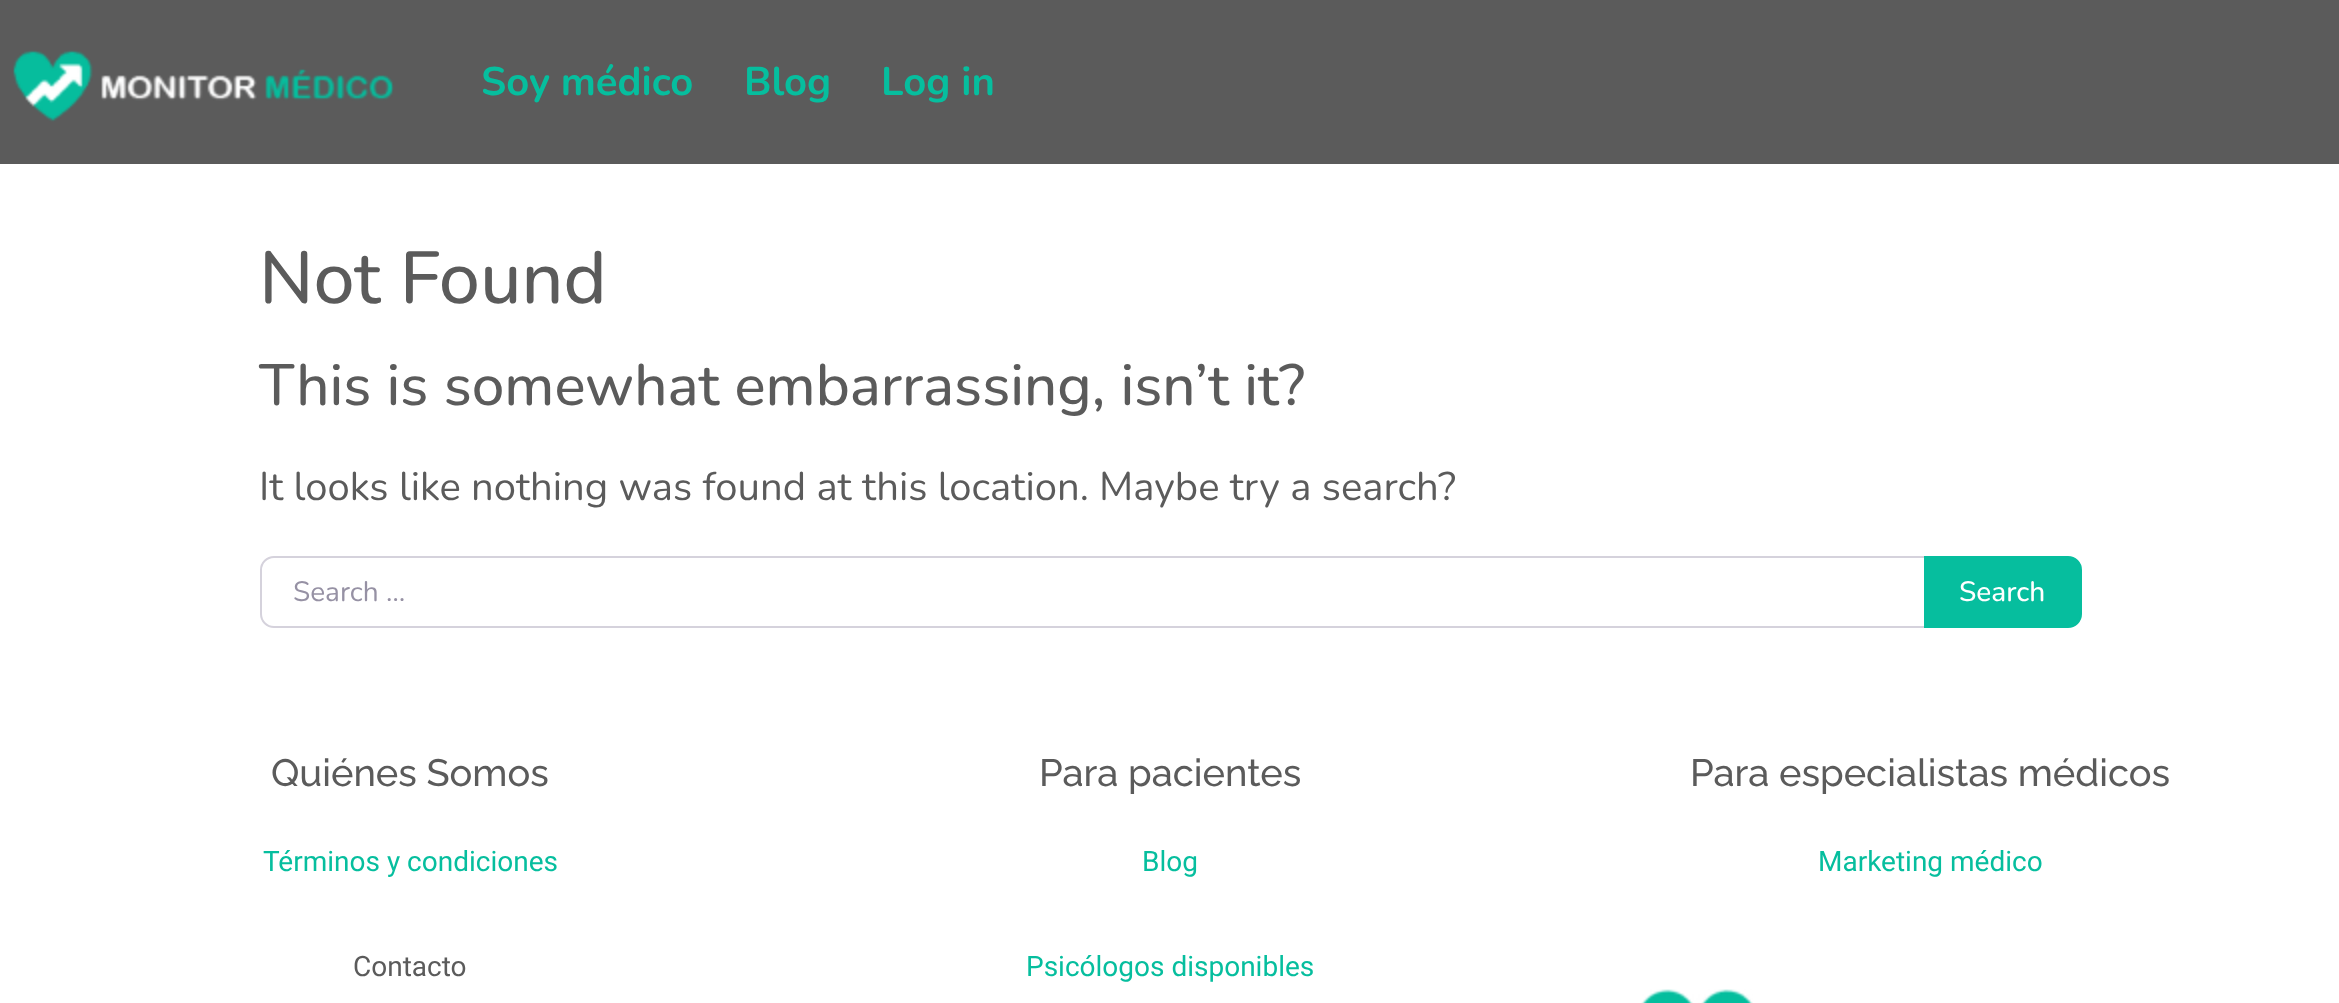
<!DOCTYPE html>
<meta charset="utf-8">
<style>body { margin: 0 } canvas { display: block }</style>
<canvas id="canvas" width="2339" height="1003"></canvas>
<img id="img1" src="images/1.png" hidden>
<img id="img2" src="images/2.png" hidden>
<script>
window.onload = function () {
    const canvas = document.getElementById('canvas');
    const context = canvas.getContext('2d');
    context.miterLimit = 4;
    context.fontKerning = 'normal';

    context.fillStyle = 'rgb(255, 255, 255)';
    context.fillRect(0, 0, 2339, 1003);
    context.fillStyle = 'rgb(91, 91, 91)';
    context.fillRect(0, 0, 2339, 164);
    context.drawImage(document.getElementById('img1'), 13, 50, 381, 72);
    context.beginPath();
    context.roundRect(261, 557, 1664, 70, [13, 0, 0, 13]);
    context.strokeStyle = 'rgb(213, 210, 220)';
    context.lineWidth = 2;
    context.stroke();
    context.fillStyle = 'rgb(6, 190, 158)';
    context.beginPath();
    context.roundRect(1925, 557, 156, 70, [0, 13, 13, 0]);
    context.fill();
    context.strokeStyle = 'rgb(6, 190, 158)';
    context.stroke();
    context.drawImage(document.getElementById('img2'), 1641, 989, 112, 14);
    context.font = 'bold 40px Nunito';
    context.fillText('Soy médico', 481, 95);
    context.fillText('Blog', 744, 95);
    context.fillText('Log in', 881, 95);
    context.font = '500 73.5px Nunito';
    context.fillStyle = 'rgb(91, 91, 91)';
    context.fillText('Not Found', 259, 303);
    context.font = '500 58.2px Nunito';
    context.fillText('This is somewhat embarrassing, isn’t it?', 259, 405);
    context.font = '40px Nunito';
    context.fillText('It looks like nothing was found at this location. Maybe try a search?', 259, 500);
    context.font = '28px Nunito';
    context.fillStyle = 'rgb(150, 145, 164)';
    context.fillText('Search …', 293, 601);
    context.font = '500 28px Nunito';
    context.fillStyle = 'rgb(255, 255, 255)';
    context.fillText('Search', 1959, 601);
    context.font = '500 38px Raleway';
    context.fillStyle = 'rgb(91, 91, 91)';
    context.fillText('Quiénes Somos', 271, 786);
    context.font = '28px Roboto';
    context.fillStyle = 'rgb(6, 190, 158)';
    context.fillText('Términos y condiciones', 263, 871);
    context.fillStyle = 'rgb(91, 91, 91)';
    context.fillText('Contacto', 353, 976);
    context.font = '500 38px Raleway';
    context.fillText('Para pacientes', 1039, 786);
    context.font = '28px Roboto';
    context.fillStyle = 'rgb(6, 190, 158)';
    context.fillText('Blog', 1142, 871);
    context.fillText('Psicólogos disponibles', 1026, 976);
    context.font = '500 38px Raleway';
    context.fillStyle = 'rgb(91, 91, 91)';
    context.fillText('Para especialistas médicos', 1690, 786);
    context.font = '28px Roboto';
    context.fillStyle = 'rgb(6, 190, 158)';
    context.fillText('Marketing médico', 1818, 871);
};
</script>
